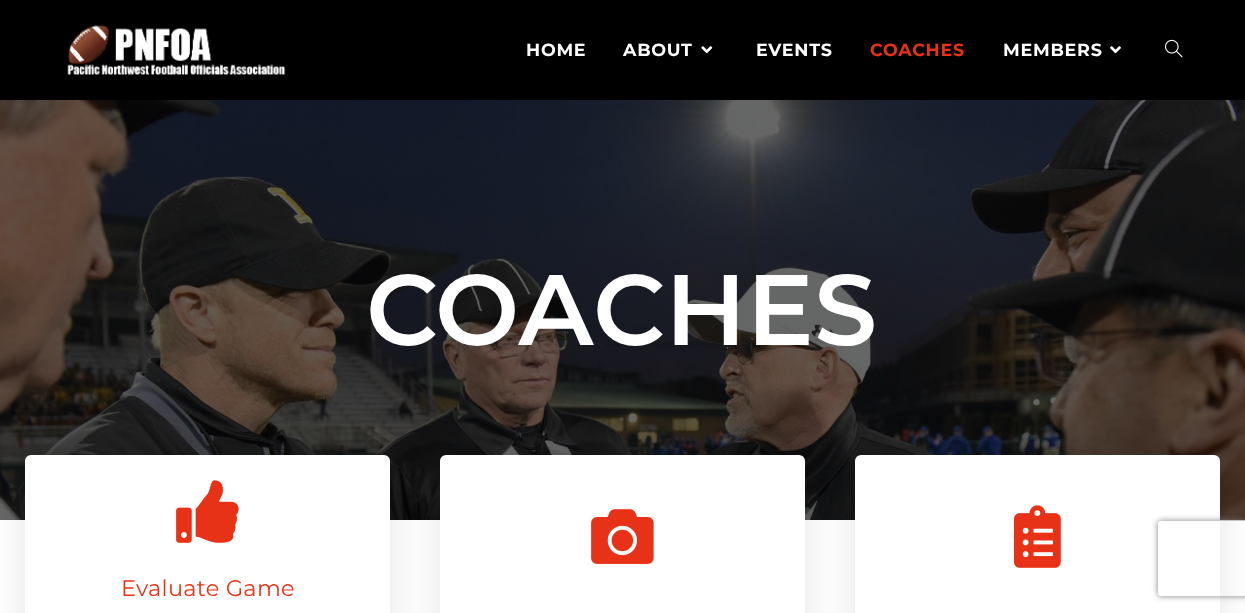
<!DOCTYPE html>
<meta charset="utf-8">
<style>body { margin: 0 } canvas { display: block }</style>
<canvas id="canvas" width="1245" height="613"></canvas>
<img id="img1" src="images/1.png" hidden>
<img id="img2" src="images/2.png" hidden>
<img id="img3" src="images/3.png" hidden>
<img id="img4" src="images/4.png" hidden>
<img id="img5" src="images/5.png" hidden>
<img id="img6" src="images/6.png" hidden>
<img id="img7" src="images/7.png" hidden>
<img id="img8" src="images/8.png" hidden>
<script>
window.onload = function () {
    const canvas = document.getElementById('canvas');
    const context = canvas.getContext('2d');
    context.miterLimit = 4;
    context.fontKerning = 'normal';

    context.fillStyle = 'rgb(255, 255, 255)';
    context.fillRect(0, 0, 1245, 613);
    context.fillStyle = 'rgb(0, 0, 0)';
    context.fillRect(0, 0, 1245, 100);
    context.drawImage(document.getElementById('img1'), 67, 25, 219, 50);
    context.drawImage(document.getElementById('img2'), 701, 46, 12, 8);
    context.drawImage(document.getElementById('img3'), 1110, 46, 11, 8);
    context.drawImage(document.getElementById('img4'), 1165, 39, 18, 19);
    context.drawImage(document.getElementById('img5'), 0, 100, 1245, 420);
    context.fillStyle = 'rgba(0, 0, 0, 0.1)';
    context.filter = 'blur(19px)';
    context.beginPath();
    context.roundRect(25, 455, 365, 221, 6);
    context.fill();
    context.filter = 'none';
    context.fillStyle = 'rgb(255, 255, 255)';
    context.beginPath();
    context.roundRect(25, 455, 365, 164, 6);
    context.fill();
    context.drawImage(document.getElementById('img6'), 176, 480, 63, 63);
    context.fillStyle = 'rgba(0, 0, 0, 0.1)';
    context.filter = 'blur(19px)';
    context.beginPath();
    context.roundRect(440, 455, 365, 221, 6);
    context.fill();
    context.filter = 'none';
    context.fillStyle = 'rgb(255, 255, 255)';
    context.beginPath();
    context.roundRect(440, 455, 365, 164, 6);
    context.fill();
    context.drawImage(document.getElementById('img7'), 591, 509, 63, 55);
    context.fillStyle = 'rgba(0, 0, 0, 0.1)';
    context.filter = 'blur(19px)';
    context.beginPath();
    context.roundRect(855, 455, 365, 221, 6);
    context.fill();
    context.filter = 'none';
    context.fillStyle = 'rgb(255, 255, 255)';
    context.beginPath();
    context.roundRect(855, 455, 365, 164, 6);
    context.fill();
    context.drawImage(document.getElementById('img8'), 1013, 505, 48, 63);
    context.save();
    context.beginPath();
    context.moveTo(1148, 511);
    context.lineTo(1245, 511);
    context.lineTo(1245, 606);
    context.lineTo(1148, 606);
    context.closePath();
    context.moveTo(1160.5, 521);
    context.lineTo(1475.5, 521);
    context.bezierCurveTo(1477, 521, 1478, 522, 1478, 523.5);
    context.lineTo(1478, 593.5);
    context.bezierCurveTo(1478, 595, 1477, 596, 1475.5, 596);
    context.lineTo(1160.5, 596);
    context.bezierCurveTo(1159, 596, 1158, 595, 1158, 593.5);
    context.lineTo(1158, 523.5);
    context.bezierCurveTo(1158, 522, 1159, 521, 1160.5, 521);
    context.closePath();
    context.clip('evenodd');
    context.fillStyle = 'rgb(128, 128, 128)';
    context.filter = 'blur(3px)';
    context.beginPath();
    context.roundRect(1158, 521, 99, 75, 2.5);
    context.fill();
    context.filter = 'none';
    context.restore();
    context.letterSpacing = '0.75px';
    context.font = 'bold 17.5px Montserrat';
    context.fillText('HOME', 526, 56);
    context.fillText('ABOUT', 623, 56);
    context.fillText('EVENTS', 756, 56);
    context.fillStyle = 'rgb(232, 50, 23)';
    context.fillText('COACHES', 870, 56);
    context.fillStyle = 'rgb(255, 255, 255)';
    context.fillText('MEMBERS', 1003, 56);
    context.letterSpacing = '0.5px';
    context.font = '600 100px Montserrat';
    context.fillText('COACHES', 366, 345);
    context.letterSpacing = '0.25px';
    context.font = '22.5px Montserrat';
    context.fillStyle = 'rgb(232, 50, 23)';
    context.fillText('Evaluate Game', 121, 596);
};
</script>
